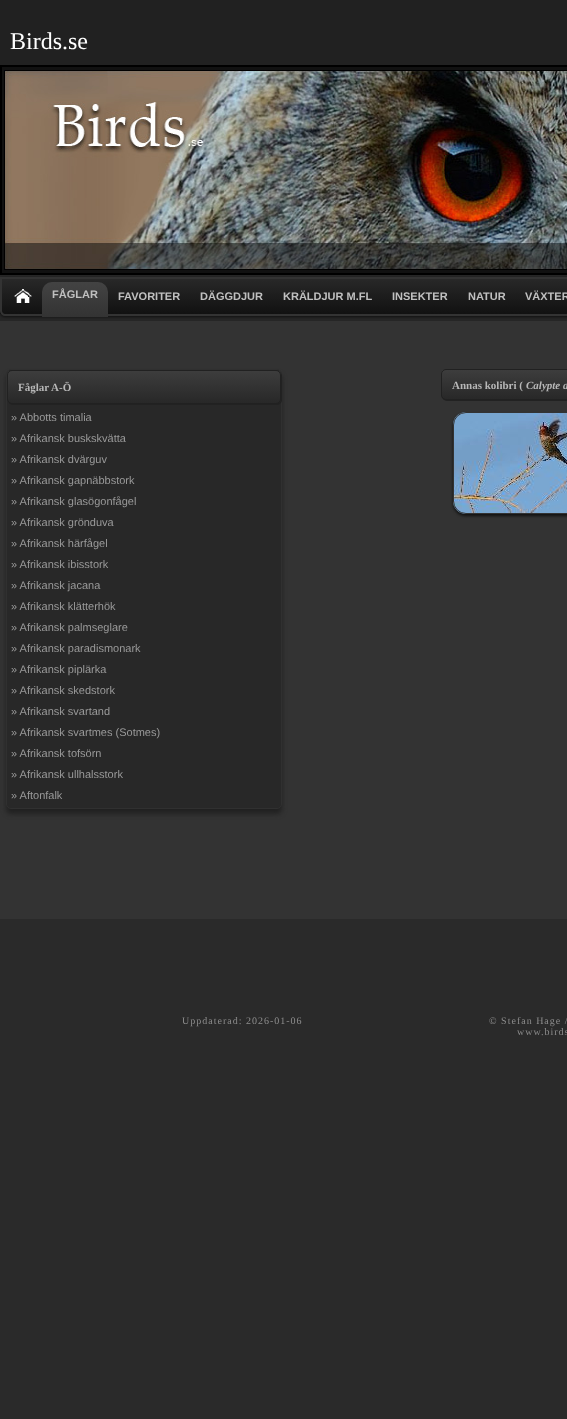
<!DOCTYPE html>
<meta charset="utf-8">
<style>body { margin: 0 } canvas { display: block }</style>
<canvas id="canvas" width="567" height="1419"></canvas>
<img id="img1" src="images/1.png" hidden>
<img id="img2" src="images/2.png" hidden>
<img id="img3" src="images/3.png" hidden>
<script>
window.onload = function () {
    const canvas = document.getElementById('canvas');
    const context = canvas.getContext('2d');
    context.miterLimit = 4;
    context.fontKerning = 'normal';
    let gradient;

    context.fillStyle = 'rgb(51, 51, 51)';
    context.fillRect(0, 0, 567, 1419);
    context.fillStyle = 'rgb(38, 38, 38)';
    context.fillRect(0, 275, 567, 46);
    context.fillStyle = 'rgb(33, 33, 33)';
    context.fillRect(0, 0, 567, 65);
    context.fillStyle = 'rgb(17, 17, 17)';
    context.beginPath();
    context.rect(1, 66, 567, 208);
    context.fill();
    context.strokeStyle = 'rgb(0, 0, 0)';
    context.lineWidth = 2;
    context.stroke();
    context.drawImage(document.getElementById('img1'), 4, 70, 563, 200);
    context.fillStyle = 'rgb(16, 16, 16)';
    context.filter = 'blur(1px)';
    context.beginPath();
    context.roundRect(0, 278, 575, 39, 5);
    context.fill();
    context.filter = 'none';
    gradient = context.createLinearGradient(554, 279, 554, 314);
    gradient.addColorStop(0, 'rgb(40, 40, 40)');
    gradient.addColorStop(1, 'rgb(17, 17, 17)');
    context.fillStyle = gradient;
    context.fillRect(0, 279, 567, 35);
    context.beginPath();
    context.moveTo(1, 278);
    context.lineTo(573, 278);
    context.lineTo(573, 311);
    context.bezierCurveTo(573, 313, 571, 315, 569, 315);
    context.lineTo(5, 315);
    context.bezierCurveTo(3, 315, 1, 313, 1, 311);
    context.closePath();
    context.strokeStyle = 'rgb(51, 51, 51)';
    context.stroke();
    context.drawImage(document.getElementById('img2'), 14, 289, 18, 14);
    gradient = context.createLinearGradient(75, 282, 75, 317);
    gradient.addColorStop(0, 'rgb(67, 67, 67)');
    gradient.addColorStop(1, 'rgb(51, 51, 51)');
    context.fillStyle = gradient;
    context.beginPath();
    context.roundRect(42, 282, 66, 35, [10, 10, 0, 0]);
    context.fill();
    context.fillStyle = 'rgb(33, 33, 33)';
    context.filter = 'blur(2.5px)';
    context.beginPath();
    context.roundRect(6, 374, 276, 440, 5);
    context.fill();
    context.filter = 'none';
    context.fillStyle = 'rgb(40, 40, 40)';
    context.beginPath();
    context.roundRect(6.5, 369.5, 275, 439, 4.5);
    context.fill();
    context.strokeStyle = 'rgb(48, 48, 48)';
    context.lineWidth = 1;
    context.stroke();
    context.fillStyle = 'rgb(34, 34, 34)';
    context.filter = 'blur(0.5px)';
    context.beginPath();
    context.roundRect(8, 371, 274, 34, 5);
    context.fill();
    context.filter = 'none';
    context.save();
    context.beginPath();
    context.roundRect(7, 370, 274, 34, 5);
    context.clip();
    gradient = context.createLinearGradient(144, 371, 144, 403);
    gradient.addColorStop(0, 'rgb(61, 61, 61)');
    gradient.addColorStop(1, 'rgb(40, 40, 40)');
    context.fillStyle = gradient;
    context.fillRect(7, 371, 274, 32);
    context.restore();
    context.beginPath();
    context.roundRect(7.5, 370.5, 273, 33, 4.5);
    context.strokeStyle = 'rgb(33, 33, 33)';
    context.stroke();
    context.filter = 'blur(0.5px)';
    context.beginPath();
    context.roundRect(442, 370, 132, 31, 5);
    context.fill();
    context.filter = 'none';
    context.save();
    context.beginPath();
    context.roundRect(441, 369, 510, 31, 5);
    context.clip();
    gradient = context.createLinearGradient(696, 370, 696, 399);
    gradient.addColorStop(0, 'rgb(61, 61, 61)');
    gradient.addColorStop(1, 'rgb(40, 40, 40)');
    context.fillStyle = gradient;
    context.fillRect(441, 370, 126, 29);
    context.restore();
    context.beginPath();
    context.roundRect(441.5, 369.5, 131, 30, 4.5);
    context.stroke();
    context.fillStyle = 'rgb(17, 17, 17)';
    context.filter = 'blur(1.5px)';
    context.beginPath();
    context.roundRect(453, 414, 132, 102, 13);
    context.fill();
    context.filter = 'none';
    context.drawImage(document.getElementById('img3'), 453, 412, 114, 102);
    context.beginPath();
    context.roundRect(453.5, 412.5, 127, 101, 12.5);
    context.strokeStyle = 'rgb(51, 51, 51)';
    context.stroke();
    context.fillStyle = 'rgb(42, 42, 42)';
    context.fillRect(0, 919, 567, 500);
    context.font = '24px Liberation Serif';
    context.fillStyle = 'rgb(255, 255, 255)';
    context.fillText('Birds.se', 10, 49);
    context.font = 'bold 11px Liberation Sans';
    context.fillStyle = 'rgb(192, 192, 192)';
    context.fillText('FÅGLAR', 52, 298);
    context.fillText('FAVORITER', 118, 300);
    context.fillText('DÄGGDJUR', 200, 300);
    context.fillText('KRÄLDJUR M.FL', 283, 300);
    context.fillText('INSEKTER', 392, 300);
    context.fillText('NATUR', 468, 300);
    context.fillText('VÄXTER', 525, 300);
    context.font = 'bold 11px Liberation Serif';
    context.fillStyle = 'rgb(183, 183, 183)';
    context.fillText('Fåglar A-Ö', 18, 391);
    context.font = '11px Liberation Sans';
    context.fillStyle = 'rgb(153, 153, 153)';
    context.fillText('» Abbotts timalia', 11, 421);
    context.fillText('» Afrikansk buskskvätta', 11, 442);
    context.fillText('» Afrikansk dvärguv', 11, 463);
    context.fillText('» Afrikansk gapnäbbstork', 11, 484);
    context.fillText('» Afrikansk glasögonfågel', 11, 505);
    context.fillText('» Afrikansk grönduva', 11, 526);
    context.fillText('» Afrikansk härfågel', 11, 547);
    context.fillText('» Afrikansk ibisstork', 11, 568);
    context.fillText('» Afrikansk jacana', 11, 589);
    context.fillText('» Afrikansk klätterhök', 11, 610);
    context.fillText('» Afrikansk palmseglare', 11, 631);
    context.fillText('» Afrikansk paradismonark', 11, 652);
    context.fillText('» Afrikansk piplärka', 11, 673);
    context.fillText('» Afrikansk skedstork', 11, 694);
    context.fillText('» Afrikansk svartand', 11, 715);
    context.fillText('» Afrikansk svartmes (Sotmes)', 11, 736);
    context.fillText('» Afrikansk tofsörn', 11, 757);
    context.fillText('» Afrikansk ullhalsstork', 11, 778);
    context.fillText('» Aftonfalk', 11, 799);
    context.font = 'bold 11px Liberation Serif';
    context.fillStyle = 'rgb(183, 183, 183)';
    context.fillText('Annas kolibri (', 452, 389);
    context.font = 'italic bold 11px Liberation Serif';
    context.fillText('Calypte a', 526, 389);
    context.letterSpacing = '1px';
    context.font = '10px Liberation Serif';
    context.fillStyle = 'rgb(141, 141, 141)';
    context.fillText('Uppdaterad: 2026-01-06', 182, 1024);
    context.fillText('© Stefan Hage /', 489, 1024);
    context.fillText('www.birds', 517, 1035);
};
</script>
